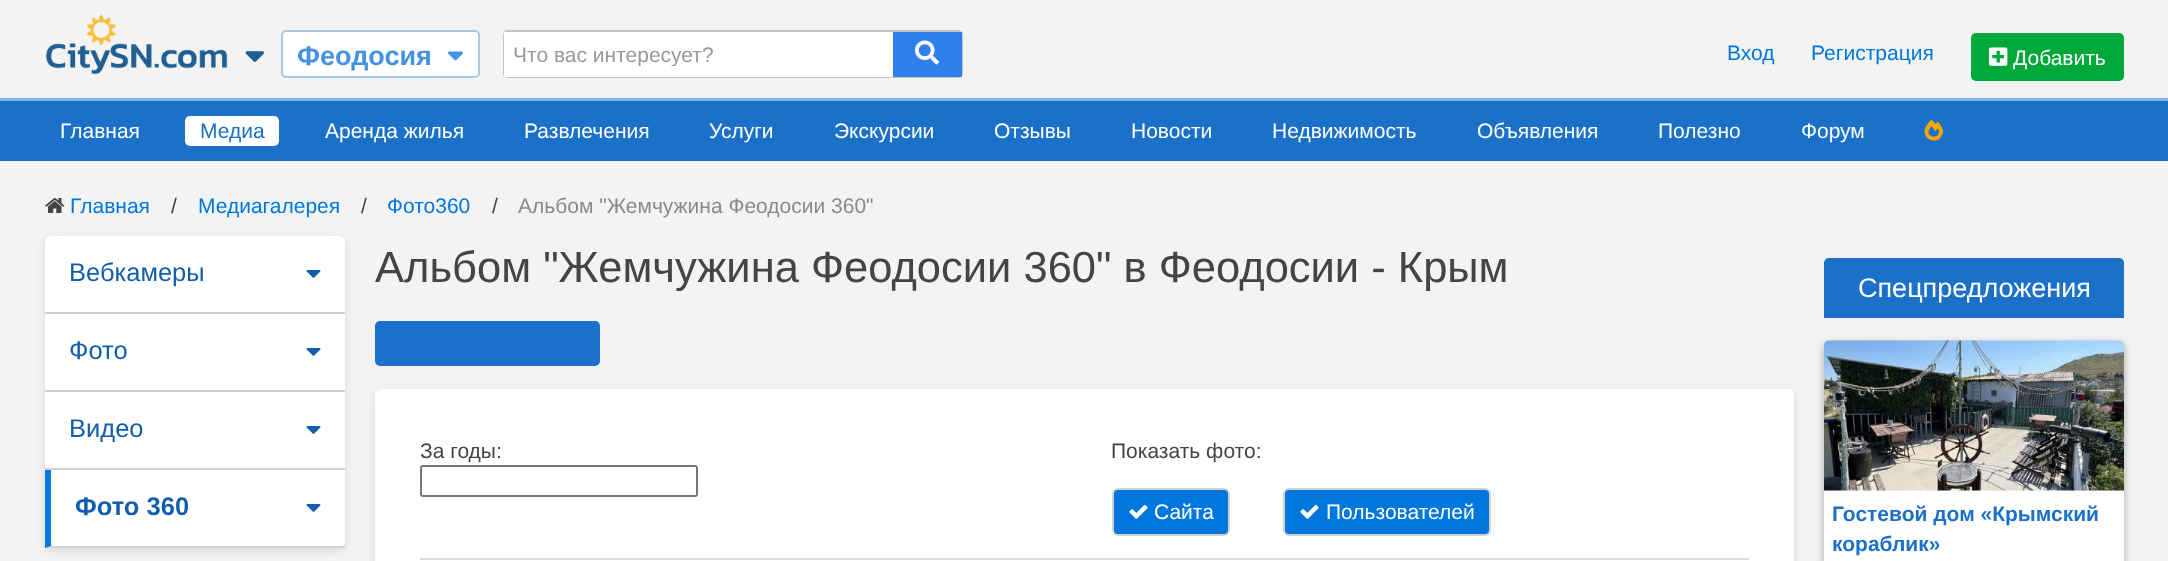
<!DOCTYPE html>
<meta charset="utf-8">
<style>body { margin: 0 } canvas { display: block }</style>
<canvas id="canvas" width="2168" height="561"></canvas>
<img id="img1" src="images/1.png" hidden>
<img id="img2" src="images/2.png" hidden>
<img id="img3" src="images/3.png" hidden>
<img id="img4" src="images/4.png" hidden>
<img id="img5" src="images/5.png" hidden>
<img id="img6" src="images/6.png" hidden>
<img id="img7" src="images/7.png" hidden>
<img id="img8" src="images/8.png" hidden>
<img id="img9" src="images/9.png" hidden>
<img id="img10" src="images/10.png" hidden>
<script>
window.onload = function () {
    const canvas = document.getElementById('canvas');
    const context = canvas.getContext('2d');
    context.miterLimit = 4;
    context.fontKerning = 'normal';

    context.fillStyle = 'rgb(243, 243, 243)';
    context.fillRect(0, 0, 2168, 561);
    context.fillStyle = 'rgb(132, 181, 226)';
    context.fillRect(0, 98, 2168, 3);
    context.drawImage(document.getElementById('img1'), 45, 15, 183, 60);
    context.drawImage(document.getElementById('img2'), 245, 51, 19, 11);
    context.fillStyle = 'rgb(255, 255, 255)';
    context.beginPath();
    context.roundRect(282, 31, 197, 46, 4);
    context.fill();
    context.strokeStyle = 'rgb(169, 199, 229)';
    context.lineWidth = 2;
    context.stroke();
    context.drawImage(document.getElementById('img3'), 447, 51, 16, 10);
    context.beginPath();
    context.roundRect(504, 31, 458, 46, 4);
    context.strokeStyle = 'rgb(196, 196, 196)';
    context.stroke();
    context.fillRect(504, 32, 389, 45);
    context.fillStyle = 'rgb(47, 128, 237)';
    context.fillRect(893, 32, 69, 45);
    context.drawImage(document.getElementById('img4'), 915, 40, 24, 25);
    context.fillStyle = 'rgb(0, 167, 57)';
    context.beginPath();
    context.roundRect(1971, 33, 153, 48, 5);
    context.fill();
    context.drawImage(document.getElementById('img5'), 1989, 47, 19, 19);
    context.fillStyle = 'rgb(27, 112, 200)';
    context.fillRect(0, 101, 2168, 60);
    context.fillStyle = 'rgb(255, 255, 255)';
    context.beginPath();
    context.roundRect(185, 116, 94, 30, 5);
    context.fill();
    context.drawImage(document.getElementById('img6'), 1924, 119, 19, 22);
    context.drawImage(document.getElementById('img7'), 45, 198, 20, 15);
    context.fillStyle = 'rgba(0, 0, 0, 0.1)';
    context.filter = 'blur(4.5px)';
    context.beginPath();
    context.roundRect(45, 239, 300, 312, 6);
    context.fill();
    context.filter = 'none';
    context.fillStyle = 'rgb(255, 255, 255)';
    context.beginPath();
    context.roundRect(45, 236, 300, 312, 6);
    context.fill();
    context.fillStyle = 'rgb(211, 211, 211)';
    context.fillRect(45, 312, 300, 2);
    context.drawImage(document.getElementById('img8'), 306, 270, 15, 8);
    context.fillRect(45, 390, 300, 2);
    context.drawImage(document.getElementById('img8'), 306, 348, 15, 8);
    context.fillRect(45, 468, 300, 2);
    context.drawImage(document.getElementById('img8'), 306, 426, 15, 8);
    context.beginPath();
    context.moveTo(345, 548);
    context.lineTo(45, 548);
    context.lineTo(51, 546);
    context.lineTo(345, 546);
    context.closePath();
    context.fill();
    context.fillStyle = 'rgb(0, 119, 221)';
    context.beginPath();
    context.moveTo(45, 548);
    context.lineTo(45, 470);
    context.lineTo(51, 470);
    context.lineTo(51, 546);
    context.closePath();
    context.fill();
    context.drawImage(document.getElementById('img8'), 306, 504, 15, 8);
    context.fillStyle = 'rgb(27, 112, 206)';
    context.beginPath();
    context.roundRect(375, 321, 225, 45, 5);
    context.fill();
    context.fillStyle = 'rgba(0, 0, 0, 0.1)';
    context.filter = 'blur(4.5px)';
    context.beginPath();
    context.roundRect(375, 392, 1419, 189, 6);
    context.fill();
    context.filter = 'none';
    context.fillStyle = 'rgb(255, 255, 255)';
    context.beginPath();
    context.roundRect(375, 389, 1419, 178, 6);
    context.fill();
    context.beginPath();
    context.roundRect(421, 466, 276, 30, 2);
    context.strokeStyle = 'rgb(118, 118, 118)';
    context.stroke();
    context.fillStyle = 'rgb(0, 119, 221)';
    context.beginPath();
    context.roundRect(1113, 489, 116, 46, 5);
    context.fill();
    context.strokeStyle = 'rgb(211, 211, 211)';
    context.stroke();
    context.drawImage(document.getElementById('img9'), 1129, 504, 19, 15);
    context.beginPath();
    context.roundRect(1284, 489, 206, 46, 5);
    context.fill();
    context.stroke();
    context.drawImage(document.getElementById('img9'), 1300, 504, 19, 15);
    context.fillStyle = 'rgb(221, 221, 221)';
    context.fillRect(420, 558, 1329, 2);
    context.fillStyle = 'rgb(27, 112, 200)';
    context.beginPath();
    context.roundRect(1824, 258, 300, 60, [5, 5, 0, 0]);
    context.fill();
    context.fillStyle = 'rgba(0, 0, 0, 0.3)';
    context.filter = 'blur(4.5px)';
    context.beginPath();
    context.roundRect(1824, 344, 300, 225, 5);
    context.fill();
    context.filter = 'none';
    context.fillStyle = 'rgb(255, 255, 255)';
    context.beginPath();
    context.roundRect(1824, 341, 300, 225, 5);
    context.fill();
    context.drawImage(document.getElementById('img10'), 1824, 340, 300, 151);
    context.font = 'bold 27px Liberation Sans';
    context.fillStyle = 'rgb(68, 146, 227)';
    context.fillText('Феодосия', 297, 65);
    context.save();
    context.beginPath();
    context.rect(513, 42, 371, 24);
    context.clip();
    context.font = '21px Liberation Sans';
    context.fillStyle = 'rgb(153, 153, 153)';
    context.fillText('Что вас интересует?', 513, 62);
    context.restore();
    context.font = '21px Liberation Sans';
    context.fillStyle = 'rgb(0, 119, 221)';
    context.fillText('Вход', 1727, 60);
    context.fillText('Регистрация', 1811, 60);
    context.fillStyle = 'rgb(255, 255, 255)';
    context.fillText('Добавить', 2013, 65);
    context.fillText('Главная', 60, 138);
    context.fillStyle = 'rgb(27, 112, 200)';
    context.fillText('Медиа', 200, 138);
    context.fillStyle = 'rgb(255, 255, 255)';
    context.fillText('Аренда жилья', 325, 138);
    context.fillText('Развлечения', 524, 138);
    context.fillText('Услуги', 709, 138);
    context.fillText('Экскурсии', 834, 138);
    context.fillText('Отзывы', 994, 138);
    context.fillText('Новости', 1131, 138);
    context.fillText('Недвижимость', 1272, 138);
    context.fillText('Объявления', 1477, 138);
    context.fillText('Полезно', 1658, 138);
    context.fillText('Форум', 1801, 138);
    context.fillStyle = 'rgb(0, 119, 221)';
    context.fillText('Главная', 70, 213);
    context.fillStyle = 'rgb(68, 68, 68)';
    context.fillText('/', 171, 213);
    context.fillStyle = 'rgb(0, 119, 221)';
    context.fillText('Медиагалерея', 198, 213);
    context.fillStyle = 'rgb(68, 68, 68)';
    context.fillText('/', 361, 213);
    context.fillStyle = 'rgb(0, 119, 221)';
    context.fillText('Фото360', 387, 213);
    context.fillStyle = 'rgb(68, 68, 68)';
    context.fillText('/', 492, 213);
    context.fillStyle = 'rgb(138, 138, 138)';
    context.fillText('Альбом "Жемчужина Феодосии 360"', 518, 213);
    context.font = '25.5px Liberation Sans';
    context.fillStyle = 'rgb(19, 94, 171)';
    context.fillText('Вебкамеры', 69, 281);
    context.fillText('Фото', 69, 359);
    context.fillText('Видео', 69, 437);
    context.font = 'bold 25.5px Liberation Sans';
    context.fillText('Фото 360', 75, 515);
    context.font = '43.5px Liberation Sans';
    context.fillStyle = 'rgb(68, 68, 68)';
    context.fillText('Альбом "Жемчужина Феодосии 360" в Феодосии - Крым', 375, 282);
    context.font = '21px Liberation Sans';
    context.fillText('За годы:', 420, 458);
    context.fillText('Показать фото:', 1111, 458);
    context.fillStyle = 'rgb(255, 255, 255)';
    context.fillText('Сайта', 1154, 519);
    context.fillText('Пользователей', 1326, 519);
    context.font = '27px Liberation Sans';
    context.fillText('Спецпредложения', 1858, 297);
    context.font = 'bold 21px Liberation Sans';
    context.fillStyle = 'rgb(27, 112, 200)';
    context.fillText('Гостевой дом «Крымский', 1832, 521);
    context.fillText('кораблик»', 1832, 551);
};
</script>
